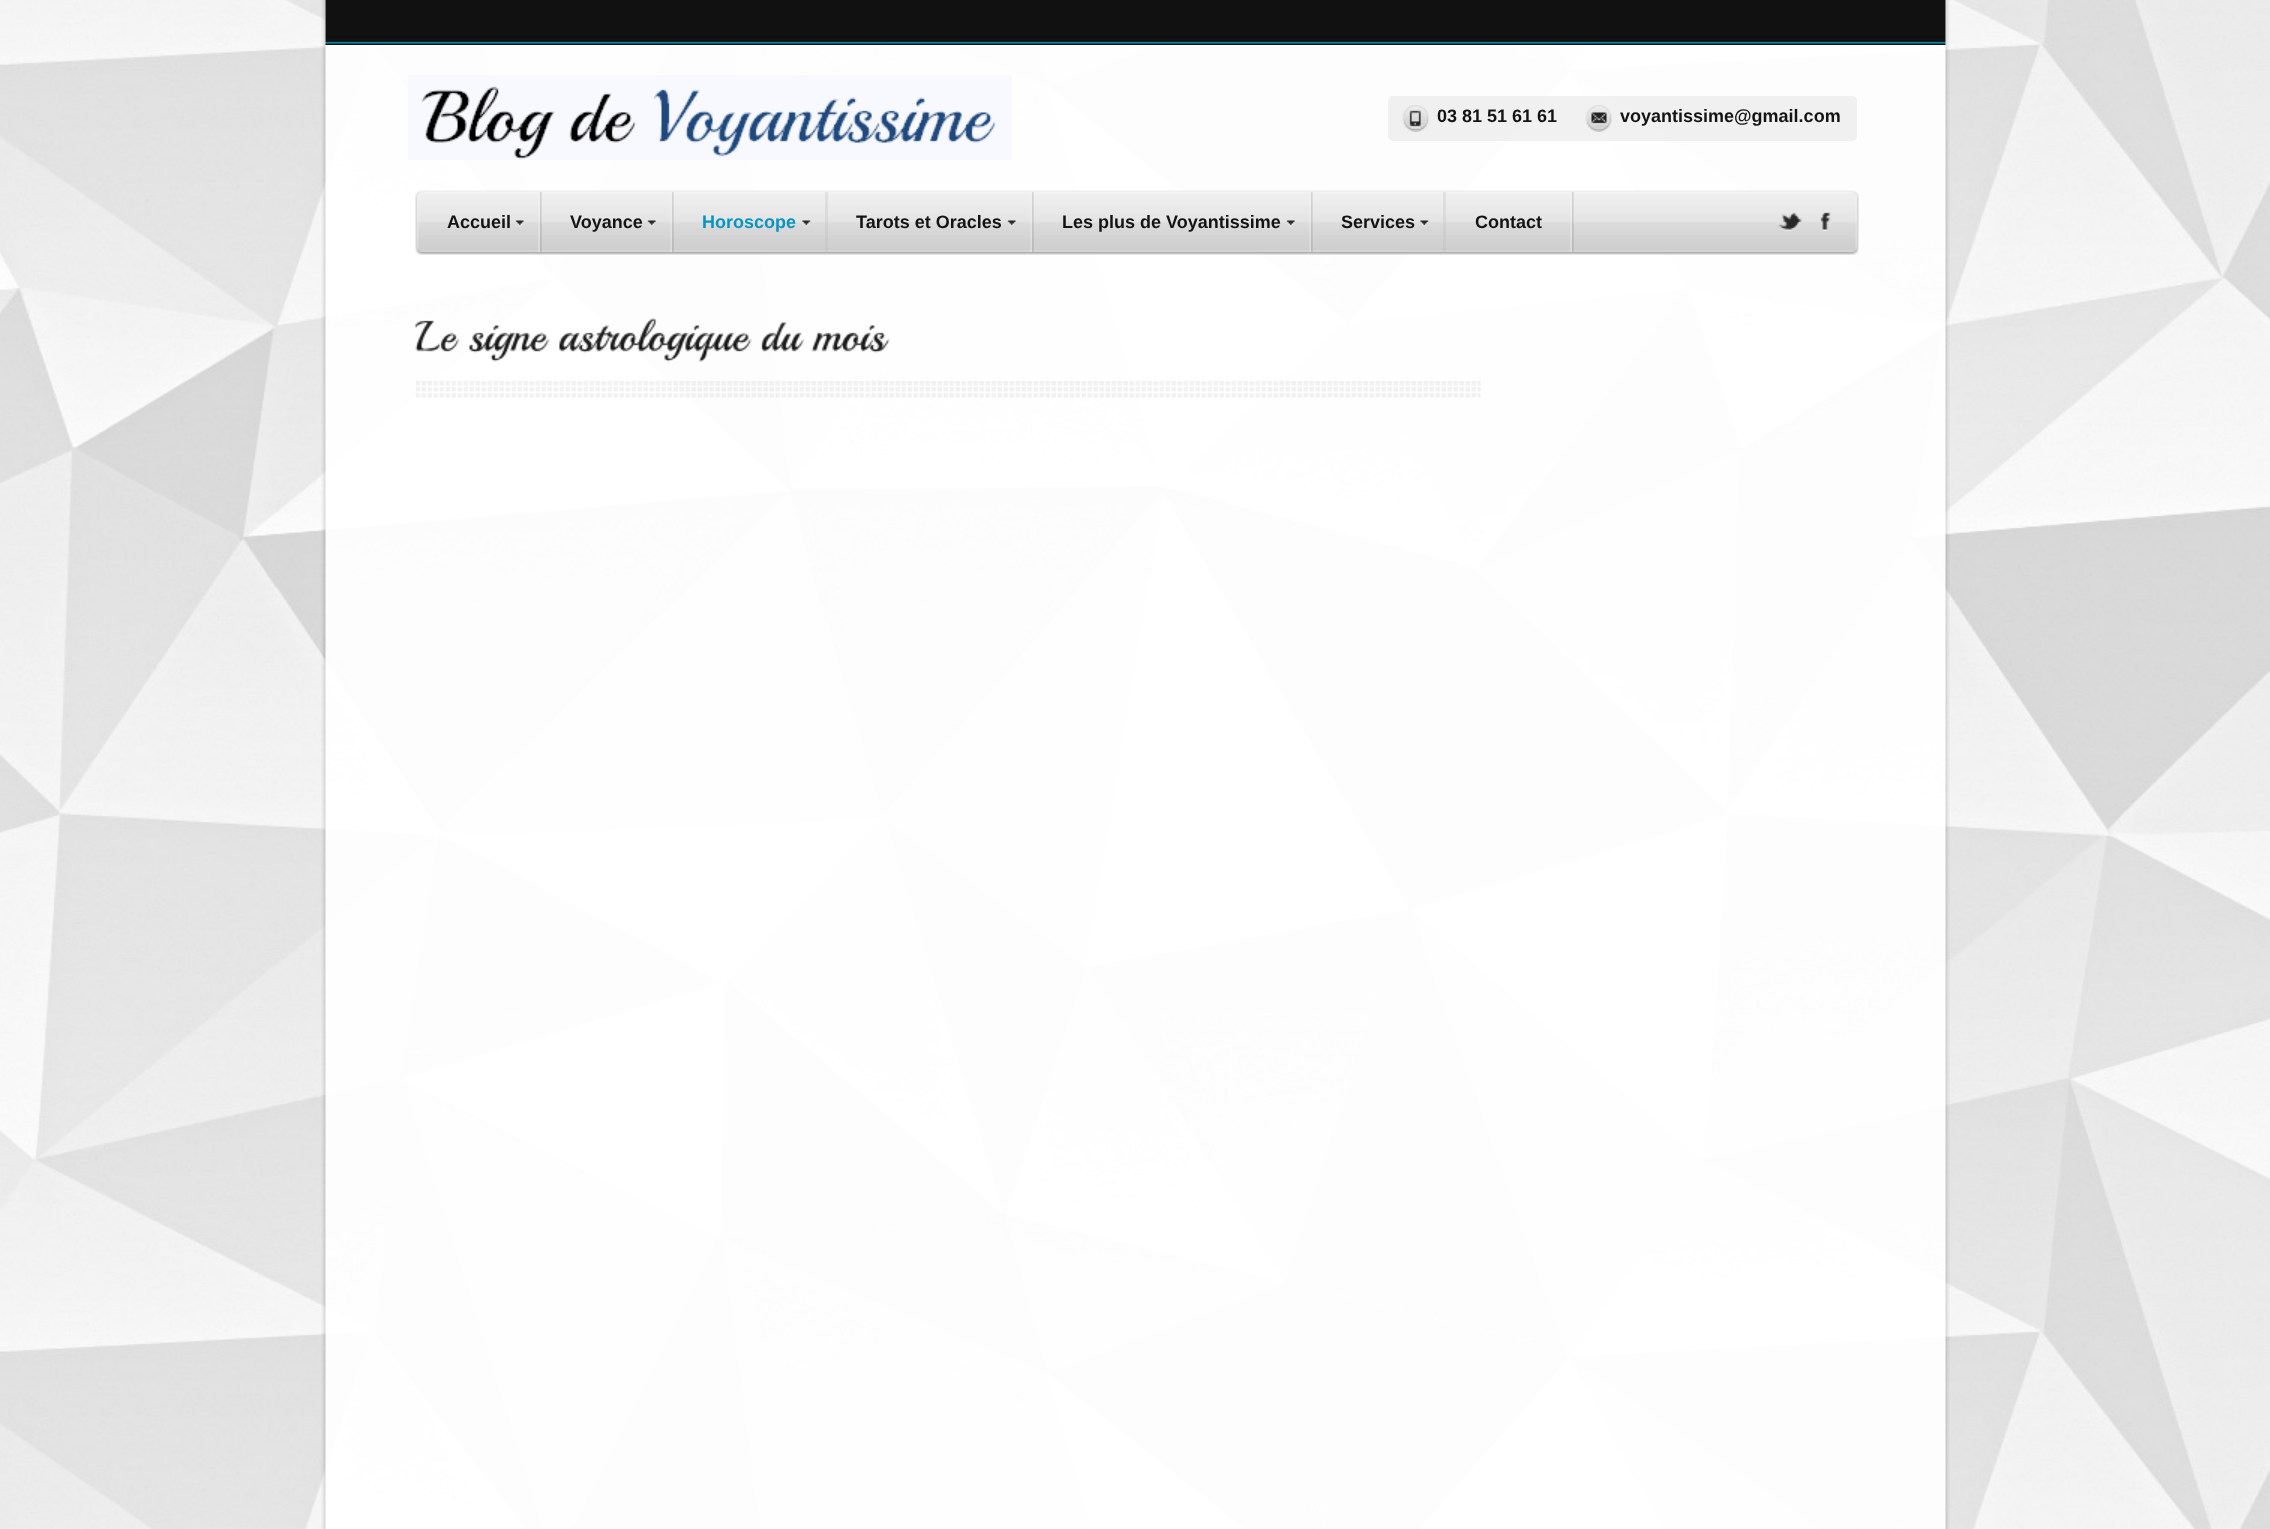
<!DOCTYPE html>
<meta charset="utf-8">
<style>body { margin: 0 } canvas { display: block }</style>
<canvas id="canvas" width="2270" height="1529"></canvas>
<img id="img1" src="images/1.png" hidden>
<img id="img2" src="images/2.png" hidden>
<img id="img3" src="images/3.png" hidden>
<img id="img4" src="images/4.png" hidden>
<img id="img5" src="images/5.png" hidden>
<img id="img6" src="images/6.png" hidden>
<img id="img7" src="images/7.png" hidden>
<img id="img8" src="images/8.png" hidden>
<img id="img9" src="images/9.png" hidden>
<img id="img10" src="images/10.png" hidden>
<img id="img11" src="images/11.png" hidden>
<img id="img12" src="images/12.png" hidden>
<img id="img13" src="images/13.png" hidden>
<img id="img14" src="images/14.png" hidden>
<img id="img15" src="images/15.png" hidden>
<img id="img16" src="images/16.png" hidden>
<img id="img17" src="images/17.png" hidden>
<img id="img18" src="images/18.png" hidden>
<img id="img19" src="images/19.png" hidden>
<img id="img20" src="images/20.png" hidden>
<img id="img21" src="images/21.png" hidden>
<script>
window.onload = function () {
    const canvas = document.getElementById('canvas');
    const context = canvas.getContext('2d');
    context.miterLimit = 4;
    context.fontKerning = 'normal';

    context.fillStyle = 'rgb(255, 255, 255)';
    context.fillRect(0, 0, 2270, 1529);
    context.drawImage(document.getElementById('img1'), 0, 0, 2270, 1529);
    context.drawImage(document.getElementById('img2'), 321, 0, 1629, 1529);
    context.drawImage(document.getElementById('img3'), 325, 0, 1621, 45);
    context.drawImage(document.getElementById('img4'), 408, 75, 604, 85);
    context.fillStyle = 'rgba(228, 228, 228, 0.51)';
    context.beginPath();
    context.roundRect(1388, 96, 469, 45, 5);
    context.fill();
    context.drawImage(document.getElementById('img5'), 1402, 105, 27, 27);
    context.drawImage(document.getElementById('img6'), 1585, 105, 27, 27);
    context.drawImage(document.getElementById('img7'), 415, 190, 1444, 65);
    context.drawImage(document.getElementById('img8'), 538, 192, 4, 60);
    context.drawImage(document.getElementById('img9'), 515, 220, 9, 7);
    context.drawImage(document.getElementById('img8'), 670, 192, 4, 60);
    context.drawImage(document.getElementById('img10'), 647, 220, 9, 7);
    context.fillStyle = 'rgba(187, 187, 187, 0.28)';
    context.fillRect(825, 192, 3, 60);
    context.drawImage(document.getElementById('img11'), 802, 220, 9, 7);
    context.drawImage(document.getElementById('img8'), 1030, 192, 4, 60);
    context.drawImage(document.getElementById('img12'), 1007, 220, 9, 7);
    context.drawImage(document.getElementById('img8'), 1309, 192, 4, 60);
    context.drawImage(document.getElementById('img10'), 1286, 220, 9, 7);
    context.fillRect(1443, 192, 3, 60);
    context.drawImage(document.getElementById('img11'), 1420, 220, 9, 7);
    context.drawImage(document.getElementById('img13'), 1570, 192, 4, 60);
    context.drawImage(document.getElementById('img14'), 1778, 212, 24, 19);
    context.drawImage(document.getElementById('img15'), 1820, 212, 11, 19);
    context.drawImage(document.getElementById('img16'), 414, 320, 46, 32);
    context.drawImage(document.getElementById('img17'), 468, 325, 82, 37);
    context.drawImage(document.getElementById('img18'), 559, 317, 193, 45);
    context.drawImage(document.getElementById('img19'), 761, 322, 44, 30);
    context.drawImage(document.getElementById('img20'), 811, 325, 79, 28);
    context.drawImage(document.getElementById('img21'), 416, 381, 1065, 17);
    context.font = 'bold 18px Liberation Sans';
    context.fillStyle = 'rgb(20, 20, 20)';
    context.fillText('03 81 51 61 61', 1437, 122);
    context.fillText('voyantissime@gmail.com', 1620, 122);
    context.fillText('Accueil', 447, 228);
    context.fillText('Voyance', 570, 228);
    context.fillStyle = 'rgb(8, 148, 194)';
    context.fillText('Horoscope', 702, 228);
    context.fillStyle = 'rgb(20, 20, 20)';
    context.fillText('Tarots et Oracles', 856, 228);
    context.fillText('Les plus de Voyantissime', 1062, 228);
    context.fillText('Services', 1341, 228);
    context.fillText('Contact', 1475, 228);
};
</script>
